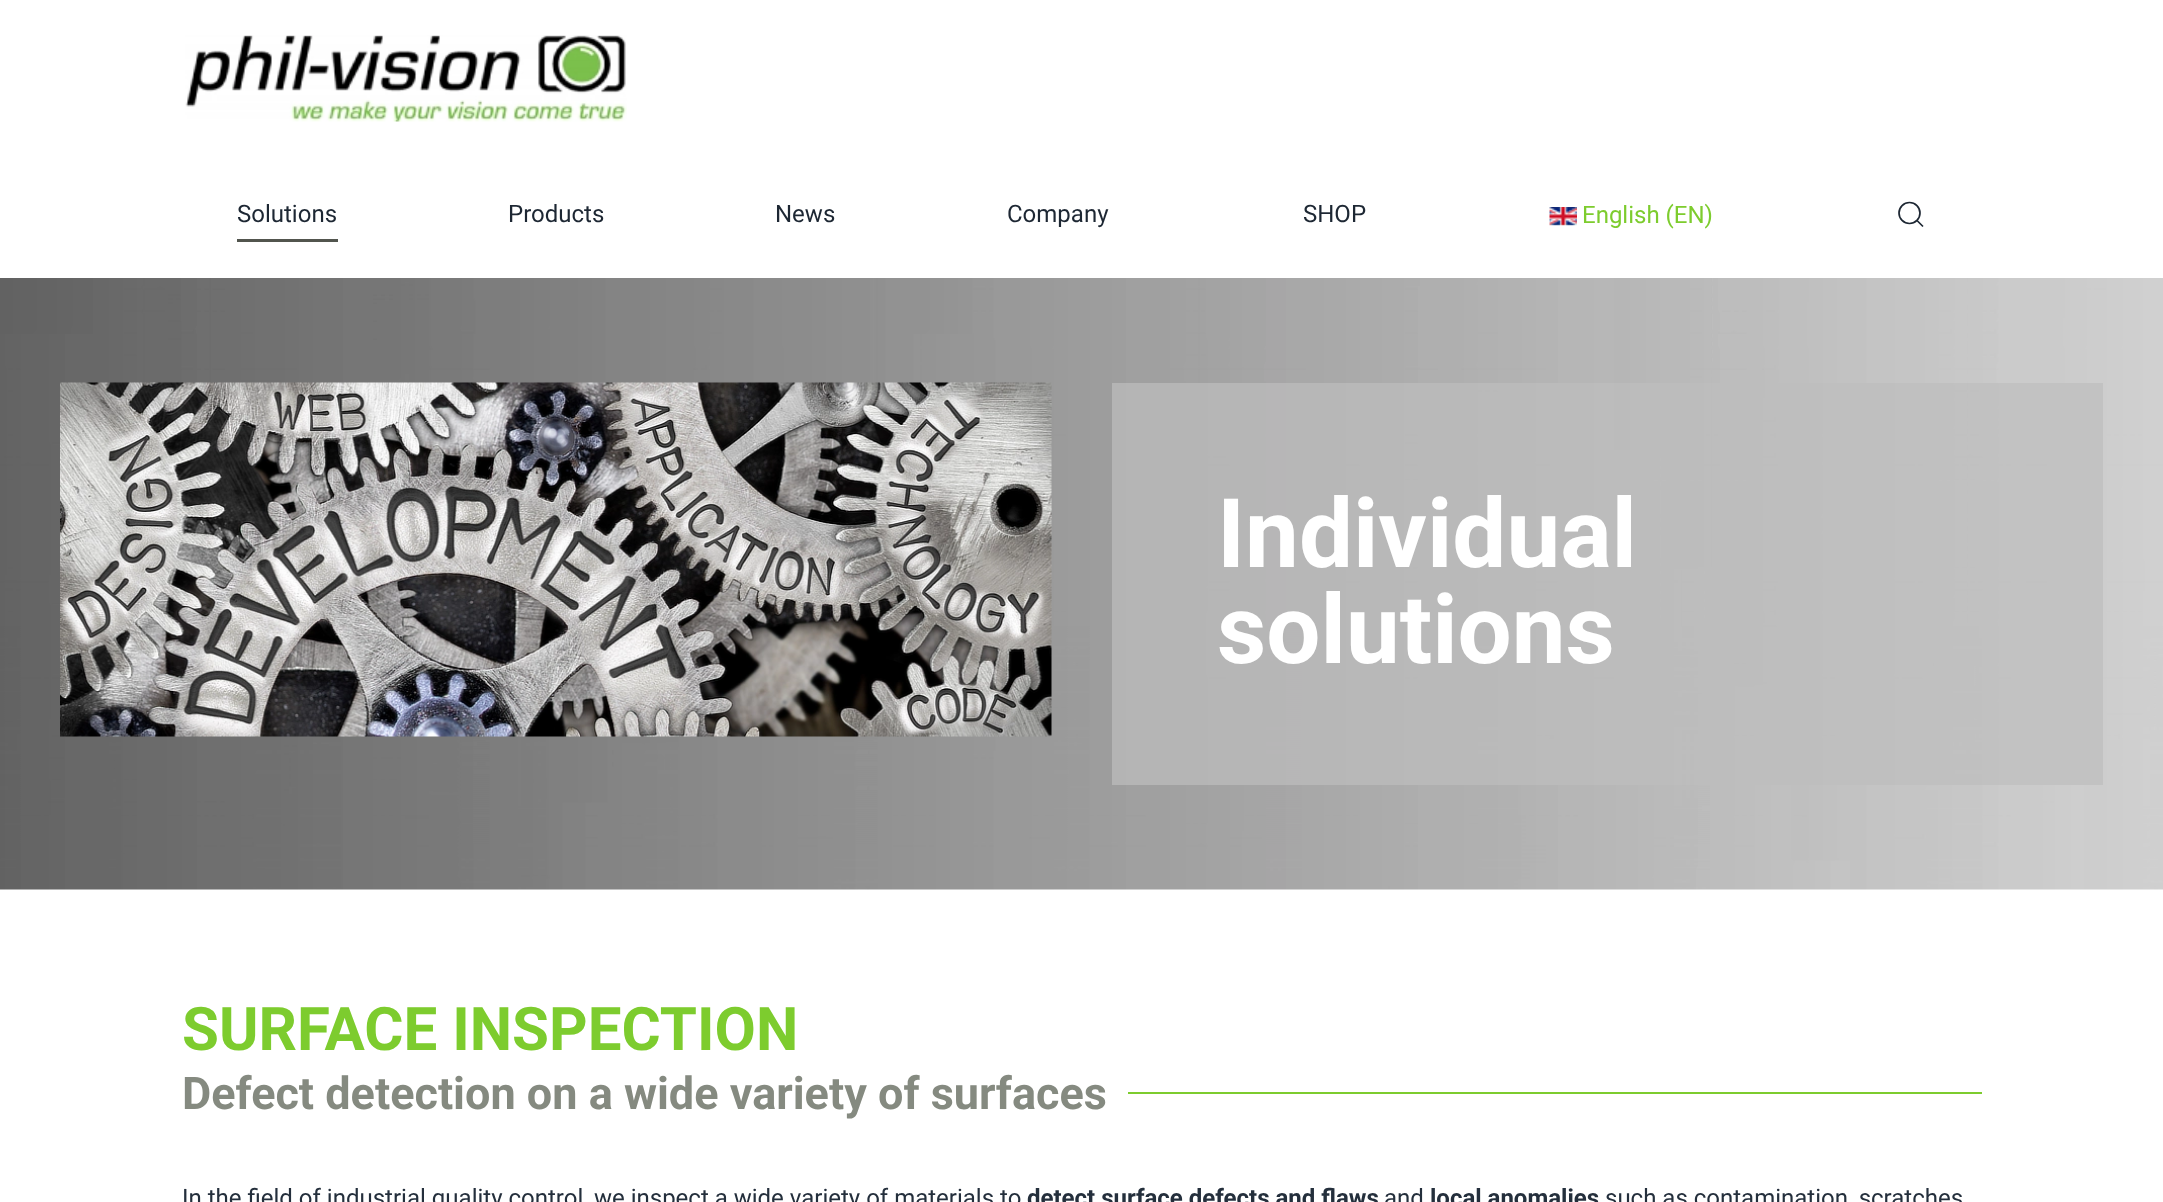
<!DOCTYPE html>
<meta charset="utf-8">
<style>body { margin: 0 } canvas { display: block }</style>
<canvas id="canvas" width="2163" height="1202"></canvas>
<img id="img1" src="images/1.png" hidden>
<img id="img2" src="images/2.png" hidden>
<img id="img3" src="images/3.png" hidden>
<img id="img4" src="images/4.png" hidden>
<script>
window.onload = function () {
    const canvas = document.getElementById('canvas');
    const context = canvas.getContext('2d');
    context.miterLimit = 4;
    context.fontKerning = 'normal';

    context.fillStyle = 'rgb(255, 255, 255)';
    context.fillRect(0, 0, 2163, 1202);
    context.drawImage(document.getElementById('img1'), 185, 35, 442, 87);
    context.fillStyle = 'rgb(82, 85, 78)';
    context.fillRect(237, 239, 101, 3);
    context.drawImage(document.getElementById('img2'), 1549, 207, 28, 19);
    context.beginPath();
    context.arc(1909.5, 213, 10.5, 0, 2 * Math.PI);
    context.strokeStyle = 'rgb(29, 39, 51)';
    context.lineWidth = 1.7;
    context.stroke();
    context.beginPath();
    context.moveTo(1917, 220.5);
    context.lineTo(1923, 226.5);
    context.closePath();
    context.stroke();
    context.drawImage(document.getElementById('img3'), 0, 278, 2163, 612);
    context.drawImage(document.getElementById('img4'), 60, 382, 992, 355);
    context.fillStyle = 'rgba(190, 190, 190, 0.7)';
    context.fillRect(1112, 383, 991, 402);
    context.fillStyle = 'rgb(125, 204, 46)';
    context.fillRect(1128, 1092, 854, 2);
    context.font = '24px Roboto';
    context.fillStyle = 'rgb(29, 39, 51)';
    context.fillText('Solutions', 237, 222);
    context.fillText('Products', 508, 222);
    context.fillText('News', 775, 222);
    context.fillText('Company', 1007, 222);
    context.fillText('SHOP', 1303, 222);
    context.fillStyle = 'rgb(125, 204, 46)';
    context.fillText('English (EN)', 1582, 223);
    context.font = 'bold 96px Roboto';
    context.fillStyle = 'rgb(255, 255, 255)';
    context.fillText('Individual', 1217, 567);
    context.fillText('solutions', 1217, 663);
    context.font = 'bold 60px Roboto';
    context.fillStyle = 'rgb(125, 204, 46)';
    context.fillText('SURFACE INSPECTION', 182, 1050);
    context.font = 'bold 45px Roboto';
    context.fillStyle = 'rgb(133, 138, 128)';
    context.fillText('Defect detection on a wide variety of surfaces', 182, 1109);
    context.font = '24px Roboto';
    context.fillStyle = 'rgb(36, 47, 60)';
    context.fillText('In the field of industrial quality control, we inspect a wide variety of materials to', 182, 1206);
    context.font = 'bold 24px Roboto';
    context.fillText('detect surface defects and flaws', 1027, 1206);
    context.font = '24px Roboto';
    context.fillText('and', 1384, 1206);
    context.font = 'bold 24px Roboto';
    context.fillText('local anomalies', 1430, 1206);
    context.font = '24px Roboto';
    context.fillText('such as contamination, scratches', 1605, 1206);
};
</script>
